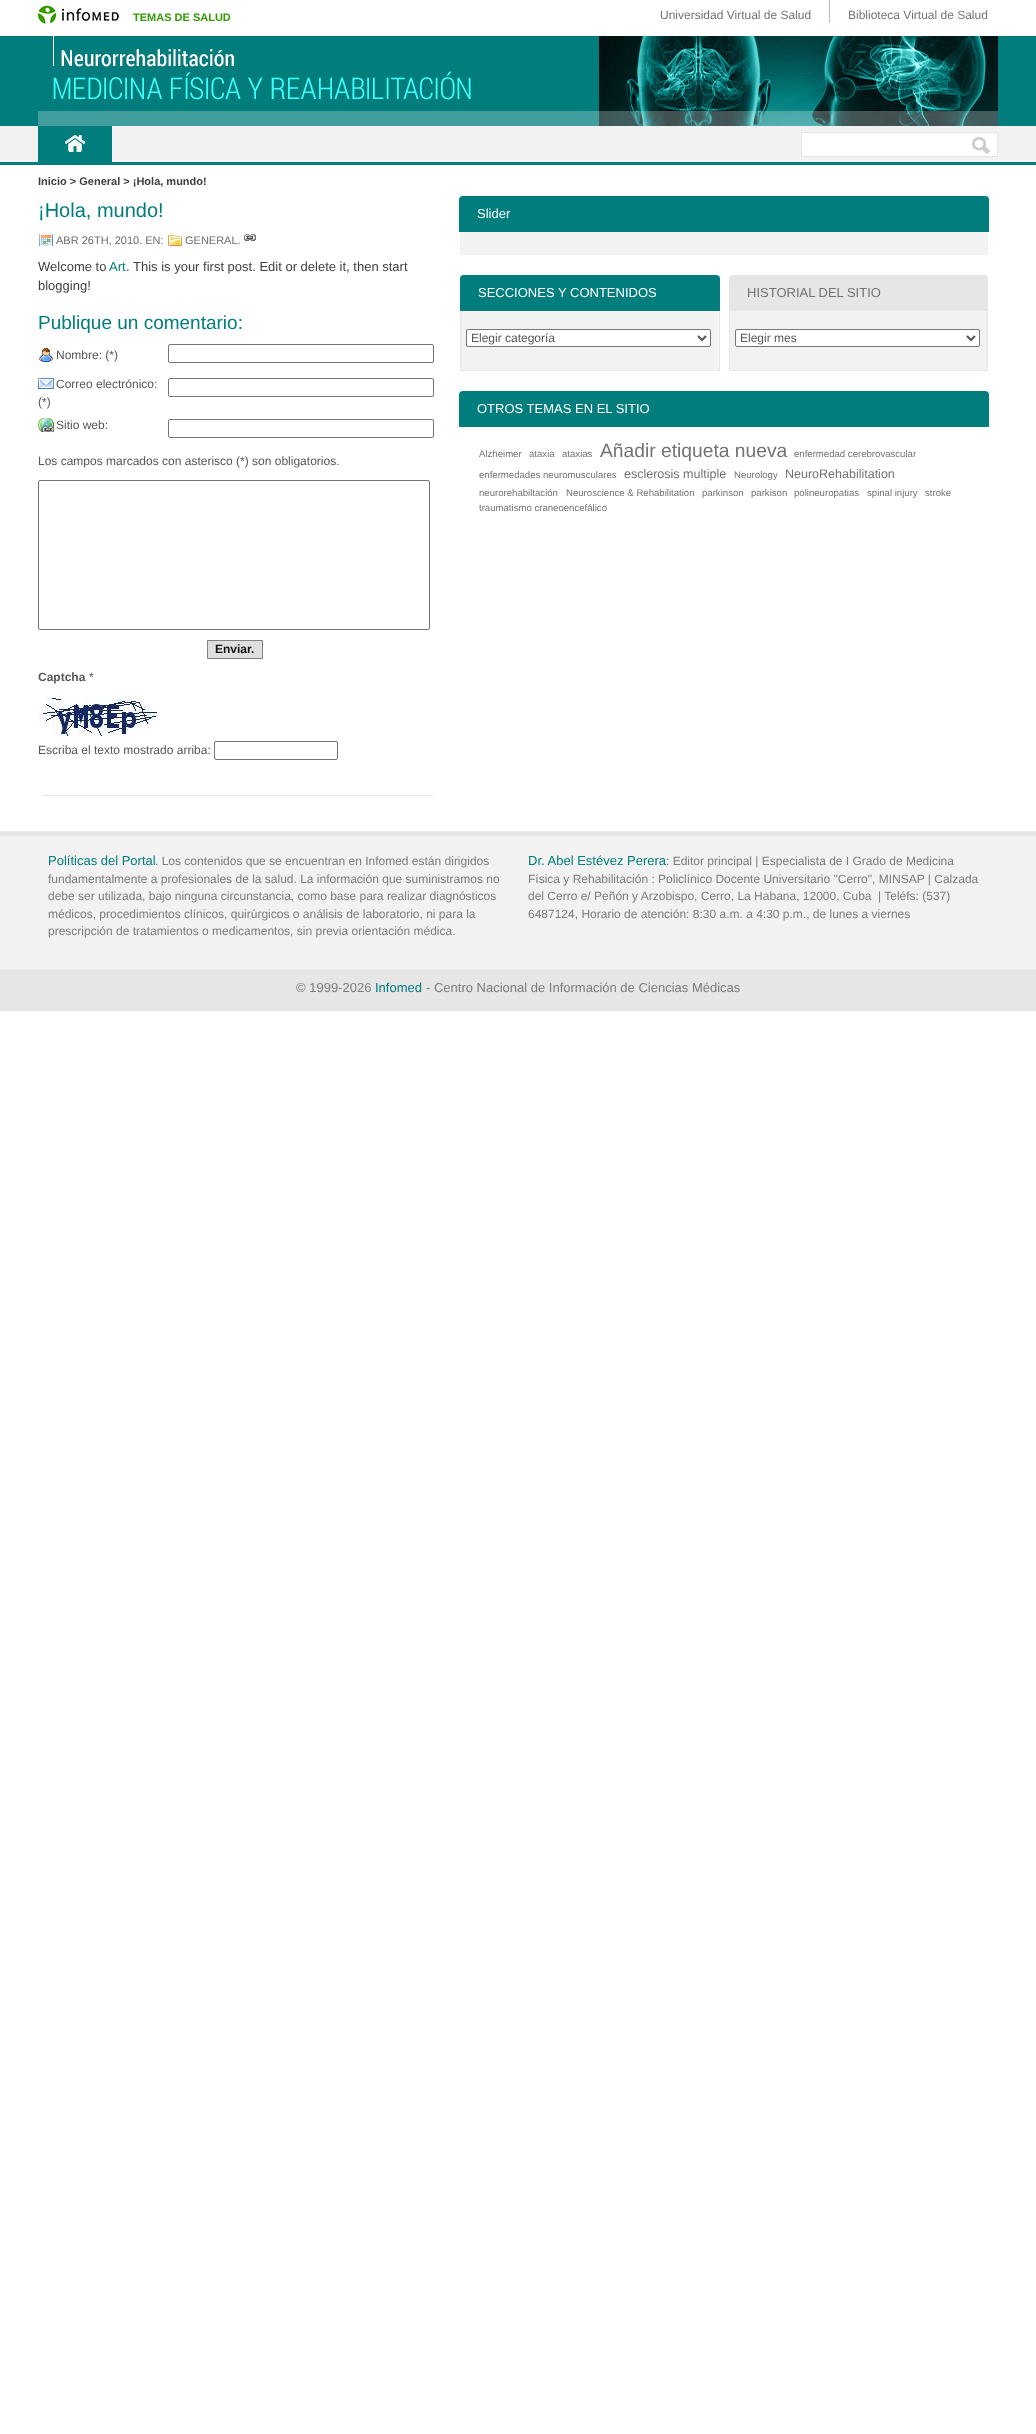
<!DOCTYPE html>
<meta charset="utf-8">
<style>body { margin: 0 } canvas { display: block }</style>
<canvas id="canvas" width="1036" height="2434"></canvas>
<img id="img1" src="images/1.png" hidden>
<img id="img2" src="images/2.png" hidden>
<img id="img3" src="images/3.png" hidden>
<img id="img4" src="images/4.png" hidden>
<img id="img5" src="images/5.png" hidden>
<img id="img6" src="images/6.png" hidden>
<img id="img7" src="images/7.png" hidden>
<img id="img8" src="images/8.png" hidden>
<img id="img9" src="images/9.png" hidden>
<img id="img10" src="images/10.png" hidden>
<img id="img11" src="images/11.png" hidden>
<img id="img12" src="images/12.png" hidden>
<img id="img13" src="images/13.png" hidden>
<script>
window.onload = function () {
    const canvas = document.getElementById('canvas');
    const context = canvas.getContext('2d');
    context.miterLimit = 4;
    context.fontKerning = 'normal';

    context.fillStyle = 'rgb(255, 255, 255)';
    context.fillRect(0, 0, 1036, 2434);
    context.drawImage(document.getElementById('img1'), 0, 831, 1036, 180);
    context.drawImage(document.getElementById('img2'), 38, 5, 81, 19);
    context.fillStyle = 'rgb(191, 191, 191)';
    context.fillRect(829, 0, 1, 23);
    context.fillStyle = 'rgb(0, 125, 124)';
    context.fillRect(0, 36, 1036, 90);
    context.drawImage(document.getElementById('img3'), 38, 36, 960, 90);
    context.fillStyle = 'rgb(242, 242, 242)';
    context.fillRect(0, 126, 1036, 36);
    context.fillStyle = 'rgb(0, 125, 124)';
    context.fillRect(0, 162, 1036, 3);
    context.fillRect(38, 126, 74, 36);
    context.drawImage(document.getElementById('img4'), 65, 135, 20, 17);
    context.drawImage(document.getElementById('img5'), 65, 135, 20, 17);
    context.fillStyle = 'rgb(255, 255, 255)';
    context.beginPath();
    context.rect(801.5, 132.5, 196, 24);
    context.fill();
    context.strokeStyle = 'rgb(230, 230, 230)';
    context.stroke();
    context.drawImage(document.getElementById('img6'), 972, 137, 18, 17);
    context.drawImage(document.getElementById('img7'), 39, 234, 14, 12);
    context.drawImage(document.getElementById('img8'), 168, 235, 14, 11);
    context.drawImage(document.getElementById('img9'), 244, 234, 12, 7);
    context.drawImage(document.getElementById('img10'), 39, 348, 14, 14);
    context.beginPath();
    context.roundRect(168.5, 344.5, 265, 18, 1.5);
    context.strokeStyle = 'rgb(118, 118, 118)';
    context.stroke();
    context.drawImage(document.getElementById('img11'), 38, 378, 16, 11);
    context.beginPath();
    context.roundRect(168.5, 378.5, 265, 18, 1.5);
    context.stroke();
    context.drawImage(document.getElementById('img12'), 38, 418, 16, 14);
    context.beginPath();
    context.roundRect(168.5, 419.5, 265, 18, 1.5);
    context.stroke();
    context.beginPath();
    context.roundRect(38.5, 480.5, 391, 149, 1.5);
    context.stroke();
    context.fillStyle = 'rgb(223, 223, 223)';
    context.beginPath();
    context.rect(207.5, 640.5, 55, 18);
    context.fill();
    context.strokeStyle = 'rgb(128, 128, 128)';
    context.stroke();
    context.drawImage(document.getElementById('img13'), 38, 696, 120, 40);
    context.beginPath();
    context.roundRect(214.5, 741.5, 123, 18, 1.5);
    context.strokeStyle = 'rgb(118, 118, 118)';
    context.stroke();
    context.fillStyle = 'rgb(230, 230, 230)';
    context.fillRect(42, 795, 391, 1);
    context.fillStyle = 'rgb(242, 242, 242)';
    context.fillRect(460, 197, 528, 58);
    context.fillStyle = 'rgb(0, 125, 124)';
    context.beginPath();
    context.roundRect(459, 196, 530, 36, [4, 4, 0, 0]);
    context.fill();
    context.fillStyle = 'rgb(242, 242, 242)';
    context.beginPath();
    context.roundRect(460.5, 275.5, 259, 95, [4.5, 4.5, 0, 0]);
    context.fill();
    context.strokeStyle = 'rgb(230, 230, 230)';
    context.stroke();
    context.fillStyle = 'rgb(0, 125, 124)';
    context.beginPath();
    context.roundRect(460, 275, 260, 36, [4, 4, 0, 0]);
    context.fill();
    context.fillStyle = 'rgb(255, 255, 255)';
    context.beginPath();
    context.roundRect(466.5, 329.5, 244, 17, 1.5);
    context.fill();
    context.strokeStyle = 'rgb(118, 118, 118)';
    context.stroke();
    context.beginPath();
    context.moveTo(698, 336);
    context.lineTo(702, 340);
    context.lineTo(706, 336);
    context.strokeStyle = 'rgb(87, 87, 87)';
    context.lineWidth = 2;
    context.stroke();
    context.fillStyle = 'rgb(242, 242, 242)';
    context.beginPath();
    context.roundRect(729.5, 275.5, 258, 95, [4.5, 4.5, 0, 0]);
    context.fill();
    context.strokeStyle = 'rgb(230, 230, 230)';
    context.lineWidth = 1;
    context.stroke();
    context.fillStyle = 'rgb(230, 230, 230)';
    context.beginPath();
    context.roundRect(729, 275, 259, 36, [4, 4, 0, 0]);
    context.fill();
    context.fillStyle = 'rgb(255, 255, 255)';
    context.beginPath();
    context.roundRect(735.5, 329.5, 244, 17, 1.5);
    context.fill();
    context.strokeStyle = 'rgb(118, 118, 118)';
    context.stroke();
    context.beginPath();
    context.moveTo(967, 336);
    context.lineTo(971, 340);
    context.lineTo(975, 336);
    context.strokeStyle = 'rgb(87, 87, 87)';
    context.lineWidth = 2;
    context.stroke();
    context.fillStyle = 'rgb(0, 125, 124)';
    context.beginPath();
    context.roundRect(459, 391, 530, 36, [4, 4, 0, 0]);
    context.fill();
    context.font = 'bold 11px Liberation Sans';
    context.fillStyle = 'rgb(50, 154, 5)';
    context.fillText('TEMAS DE SALUD', 133, 21);
    context.font = '12px Liberation Sans';
    context.fillStyle = 'rgb(115, 115, 115)';
    context.fillText('Universidad Virtual de Salud', 660, 19);
    context.fillText('Biblioteca Virtual de Salud', 848, 19);
    context.font = 'bold 11px Liberation Sans';
    context.fillStyle = 'rgb(63, 63, 63)';
    context.fillText('Inicio > General > ¡Hola, mundo!', 38, 185);
    context.font = '20px Liberation Sans';
    context.fillStyle = 'rgb(0, 125, 124)';
    context.fillText('¡Hola, mundo!', 38, 217);
    context.font = '11px Liberation Sans';
    context.fillStyle = 'rgb(108, 108, 108)';
    context.fillText('ABR 26TH, 2010. EN:', 56, 244);
    context.fillText('GENERAL.', 185, 244);
    context.font = '13px Liberation Sans';
    context.fillStyle = 'rgb(63, 63, 63)';
    context.fillText('Welcome to', 38, 271);
    context.fillStyle = 'rgb(0, 125, 124)';
    context.fillText('Art', 109, 271);
    context.fillStyle = 'rgb(63, 63, 63)';
    context.fillText('. This is your first post. Edit or delete it, then start', 126, 271);
    context.fillText('blogging!', 38, 290);
    context.font = '19px Liberation Sans';
    context.fillStyle = 'rgb(0, 125, 124)';
    context.fillText('Publique un comentario:', 38, 329);
    context.font = '12px Liberation Sans';
    context.fillStyle = 'rgb(87, 87, 87)';
    context.fillText('Nombre: (*)', 56, 359);
    context.fillText('Correo electrónico:', 56, 388);
    context.fillText('(*)', 38, 406);
    context.fillText('Sitio web:', 56, 429);
    context.fillText('Los campos marcados con asterisco (*) son obligatorios.', 38, 465);
    context.font = 'bold 12px Liberation Sans';
    context.fillStyle = 'rgb(17, 17, 17)';
    context.fillText('Enviar.', 215, 653);
    context.fillStyle = 'rgb(87, 87, 87)';
    context.fillText('Captcha', 38, 681);
    context.font = '12px Liberation Sans';
    context.fillText('*', 89, 681);
    context.fillText('Escriba el texto mostrado arriba:', 38, 754);
    context.font = '13px Liberation Sans';
    context.fillStyle = 'rgb(255, 255, 255)';
    context.fillText('Slider', 477, 218);
    context.fillText('SECCIONES Y CONTENIDOS', 478, 297);
    context.font = '12px Liberation Sans';
    context.fillStyle = 'rgb(87, 87, 87)';
    context.fillText('Elegir categoría', 471, 342);
    context.font = '13px Liberation Sans';
    context.fillStyle = 'rgb(115, 115, 115)';
    context.fillText('HISTORIAL DEL SITIO', 747, 297);
    context.font = '12px Liberation Sans';
    context.fillStyle = 'rgb(87, 87, 87)';
    context.fillText('Elegir mes', 740, 342);
    context.font = '13px Liberation Sans';
    context.fillStyle = 'rgb(255, 255, 255)';
    context.fillText('OTROS TEMAS EN EL SITIO', 477, 413);
    context.font = '9.6px Liberation Sans';
    context.fillStyle = 'rgb(115, 115, 115)';
    context.fillText('Alzheimer', 479, 457);
    context.fillText('ataxia', 529, 457);
    context.fillText('ataxias', 562, 457);
    context.font = '19.25px Liberation Sans';
    context.fillText('Añadir etiqueta nueva', 600, 457);
    context.font = '9.6px Liberation Sans';
    context.fillText('enfermedad cerebrovascular', 794, 457);
    context.fillText('enfermedades neuromusculares', 479, 478);
    context.font = '12.5px Liberation Sans';
    context.fillText('esclerosis multiple', 624, 478);
    context.font = '9.6px Liberation Sans';
    context.fillText('Neurology', 734, 478);
    context.font = '12.5px Liberation Sans';
    context.fillText('NeuroRehabilitation', 785, 478);
    context.font = '9.6px Liberation Sans';
    context.fillText('neurorehabiltación', 479, 496);
    context.fillText('Neuroscience & Rehabilitation', 566, 496);
    context.fillText('parkinson', 702, 496);
    context.fillText('parkison', 751, 496);
    context.fillText('polineuropatias', 794, 496);
    context.fillText('spinal injury', 867, 496);
    context.fillText('stroke', 925, 496);
    context.fillText('traumatismo craneoencefálico', 479, 511);
    context.font = '13px Liberation Sans';
    context.fillStyle = 'rgb(0, 125, 124)';
    context.fillText('Políticas del Portal', 48, 865);
    context.font = '12px Liberation Sans';
    context.fillStyle = 'rgb(123, 123, 123)';
    context.fillText('. Los contenidos que se encuentran en Infomed están dirigidos', 155, 865);
    context.fillText('fundamentalmente a profesionales de la salud. La información que suministramos no', 48, 883);
    context.fillText('debe ser utilizada, bajo ninguna circunstancia, como base para realizar diagnósticos', 48, 900);
    context.fillText('médicos, procedimientos clínicos, quirúrgicos o análisis de laboratorio, ni para la', 48, 918);
    context.fillText('prescripción de tratamientos o medicamentos, sin previa orientación médica.', 48, 935);
    context.font = '13px Liberation Sans';
    context.fillStyle = 'rgb(0, 125, 124)';
    context.fillText('Dr. Abel Estévez Perera', 528, 865);
    context.font = '12px Liberation Sans';
    context.fillStyle = 'rgb(123, 123, 123)';
    context.fillText(': Editor principal | Especialista de I Grado de Medicina', 666, 865);
    context.fillText('Física y Rehabilitación : Policlínico Docente Universitario "Cerro", MINSAP | Calzada', 528, 883);
    context.fillText('del Cerro e/ Peñón y Arzobispo, Cerro, La Habana, 12000, Cuba', 528, 900);
    context.fillText('| Teléfs: (537)', 878, 900);
    context.fillText('6487124, Horario de atención: 8:30 a.m. a 4:30 p.m., de lunes a viernes', 528, 918);
    context.font = '13px Liberation Sans';
    context.fillText('© 1999-2026', 296, 992);
    context.fillStyle = 'rgb(0, 125, 124)';
    context.fillText('Infomed', 375, 992);
    context.fillStyle = 'rgb(123, 123, 123)';
    context.fillText('- Centro Nacional de Información de Ciencias Médicas', 426, 992);
};
</script>
